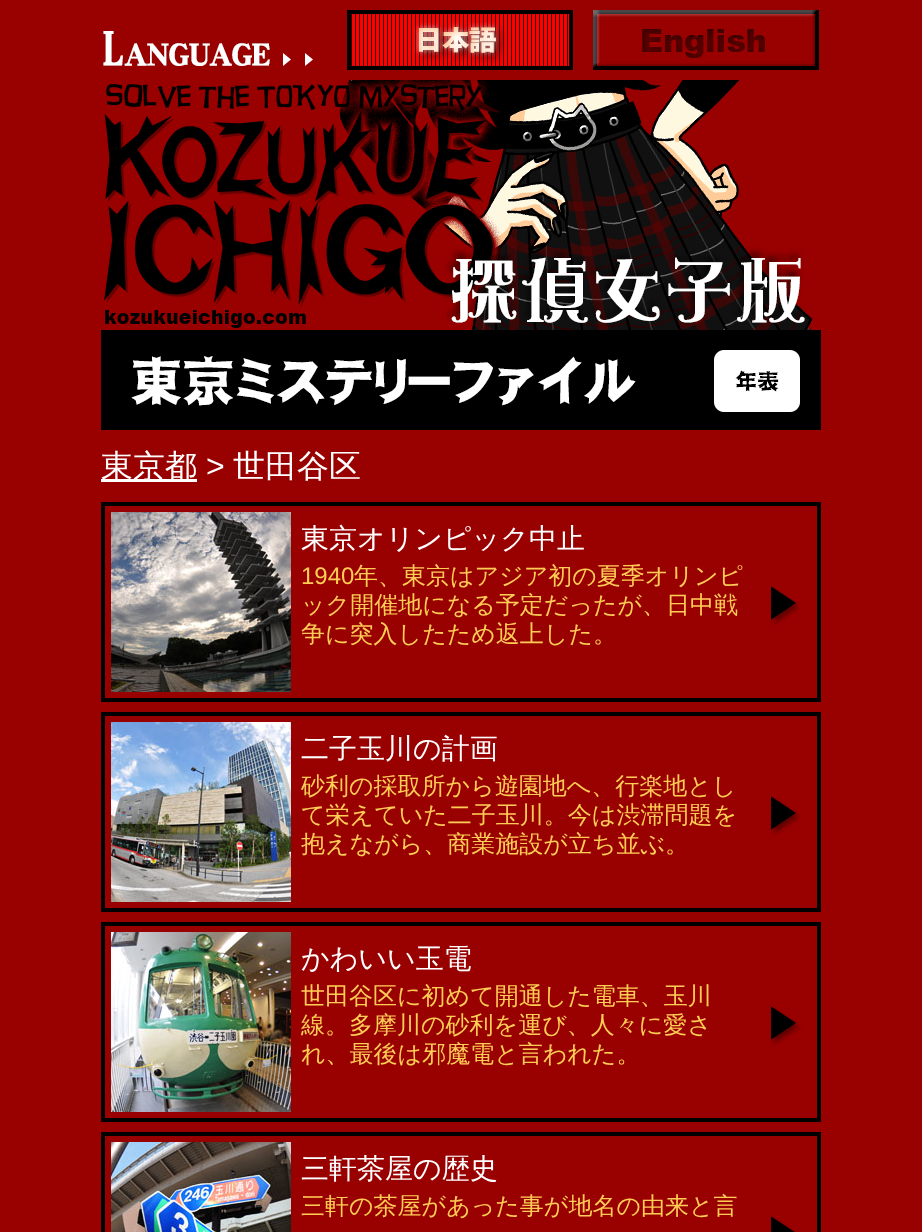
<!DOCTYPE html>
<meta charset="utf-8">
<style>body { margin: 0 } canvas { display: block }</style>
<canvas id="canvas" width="922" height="1232"></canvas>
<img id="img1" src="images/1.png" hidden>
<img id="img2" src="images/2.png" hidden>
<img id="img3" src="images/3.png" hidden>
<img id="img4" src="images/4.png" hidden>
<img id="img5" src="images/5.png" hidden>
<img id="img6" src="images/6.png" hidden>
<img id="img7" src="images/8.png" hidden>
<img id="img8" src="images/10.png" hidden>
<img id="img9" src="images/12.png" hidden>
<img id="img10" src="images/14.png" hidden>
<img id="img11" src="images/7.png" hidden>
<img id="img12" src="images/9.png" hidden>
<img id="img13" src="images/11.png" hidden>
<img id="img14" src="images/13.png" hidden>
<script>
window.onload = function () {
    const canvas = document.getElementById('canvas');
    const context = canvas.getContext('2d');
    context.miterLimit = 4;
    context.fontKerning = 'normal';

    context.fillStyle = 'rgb(153, 0, 0)';
    context.fillRect(0, 0, 922, 1232);
    context.drawImage(document.getElementById('img1'), 103, 31, 210, 35);
    context.drawImage(document.getElementById('img2'), 347, 10, 226, 60);
    context.drawImage(document.getElementById('img3'), 593, 10, 226, 60);
    context.drawImage(document.getElementById('img4'), 104, 80, 709, 250);
    context.drawImage(document.getElementById('img5'), 101, 330, 720, 100);
    context.drawImage(document.getElementById('img6'), 714, 350, 86, 62);
    context.fillStyle = 'rgb(255, 255, 255)';
    context.fillRect(101, 479, 96, 3);
    context.drawImage(document.getElementById('img7'), 111, 512, 180, 180);
    context.drawImage(document.getElementById('img8'), 111, 722, 180, 180);
    context.drawImage(document.getElementById('img9'), 111, 932, 180, 180);
    context.drawImage(document.getElementById('img10'), 111, 1142, 180, 90);
    context.font = '500 32px WenQuanYi Zen Hei';
    context.fillText('東京都', 101, 477);
    context.font = '32px Liberation Sans';
    context.fillText('>', 206, 477);
    context.font = '500 32px WenQuanYi Zen Hei';
    context.fillText('世田谷区', 233, 477);
    context.font = '500 28px WenQuanYi Zen Hei';
    context.fillText('東京オリンピック中止', 301, 548);
    context.font = '24px Liberation Sans';
    context.fillStyle = 'rgb(255, 204, 85)';
    context.fillText('1940', 301, 584);
    context.font = '500 24px WenQuanYi Zen Hei';
    context.fillText('年、東京はアジア初の夏季オリンピ', 354, 584);
    context.fillText('ック開催地になる予定だったが、日中戦', 301, 613);
    context.fillText('争に突入したため返上した。', 301, 642);
    context.drawImage(document.getElementById('img11'), 101, 502, 720, 200);
    context.font = '500 28px WenQuanYi Zen Hei';
    context.fillStyle = 'rgb(255, 255, 255)';
    context.fillText('二子玉川の計画', 301, 758);
    context.font = '500 24px WenQuanYi Zen Hei';
    context.fillStyle = 'rgb(255, 204, 85)';
    context.fillText('砂利の採取所から遊園地へ、行楽地とし', 301, 794);
    context.fillText('て栄えていた二子玉川。今は渋滞問題を', 301, 823);
    context.fillText('抱えながら、商業施設が立ち並ぶ。', 301, 852);
    context.drawImage(document.getElementById('img12'), 101, 712, 720, 200);
    context.font = '500 28px WenQuanYi Zen Hei';
    context.fillStyle = 'rgb(255, 255, 255)';
    context.fillText('かわいい玉電', 301, 968);
    context.font = '500 24px WenQuanYi Zen Hei';
    context.fillStyle = 'rgb(255, 204, 85)';
    context.fillText('世田谷区に初めて開通した電車、玉川', 301, 1004);
    context.fillText('線。多摩川の砂利を運び、人々に愛さ', 301, 1033);
    context.fillText('れ、最後は邪魔電と言われた。', 301, 1062);
    context.drawImage(document.getElementById('img13'), 101, 922, 720, 200);
    context.font = '500 28px WenQuanYi Zen Hei';
    context.fillStyle = 'rgb(255, 255, 255)';
    context.fillText('三軒茶屋の歴史', 301, 1178);
    context.font = '500 24px WenQuanYi Zen Hei';
    context.fillStyle = 'rgb(255, 204, 85)';
    context.fillText('三軒の茶屋があった事が地名の由来と言', 301, 1214);
    context.drawImage(document.getElementById('img14'), 101, 1132, 720, 100);
};
</script>
